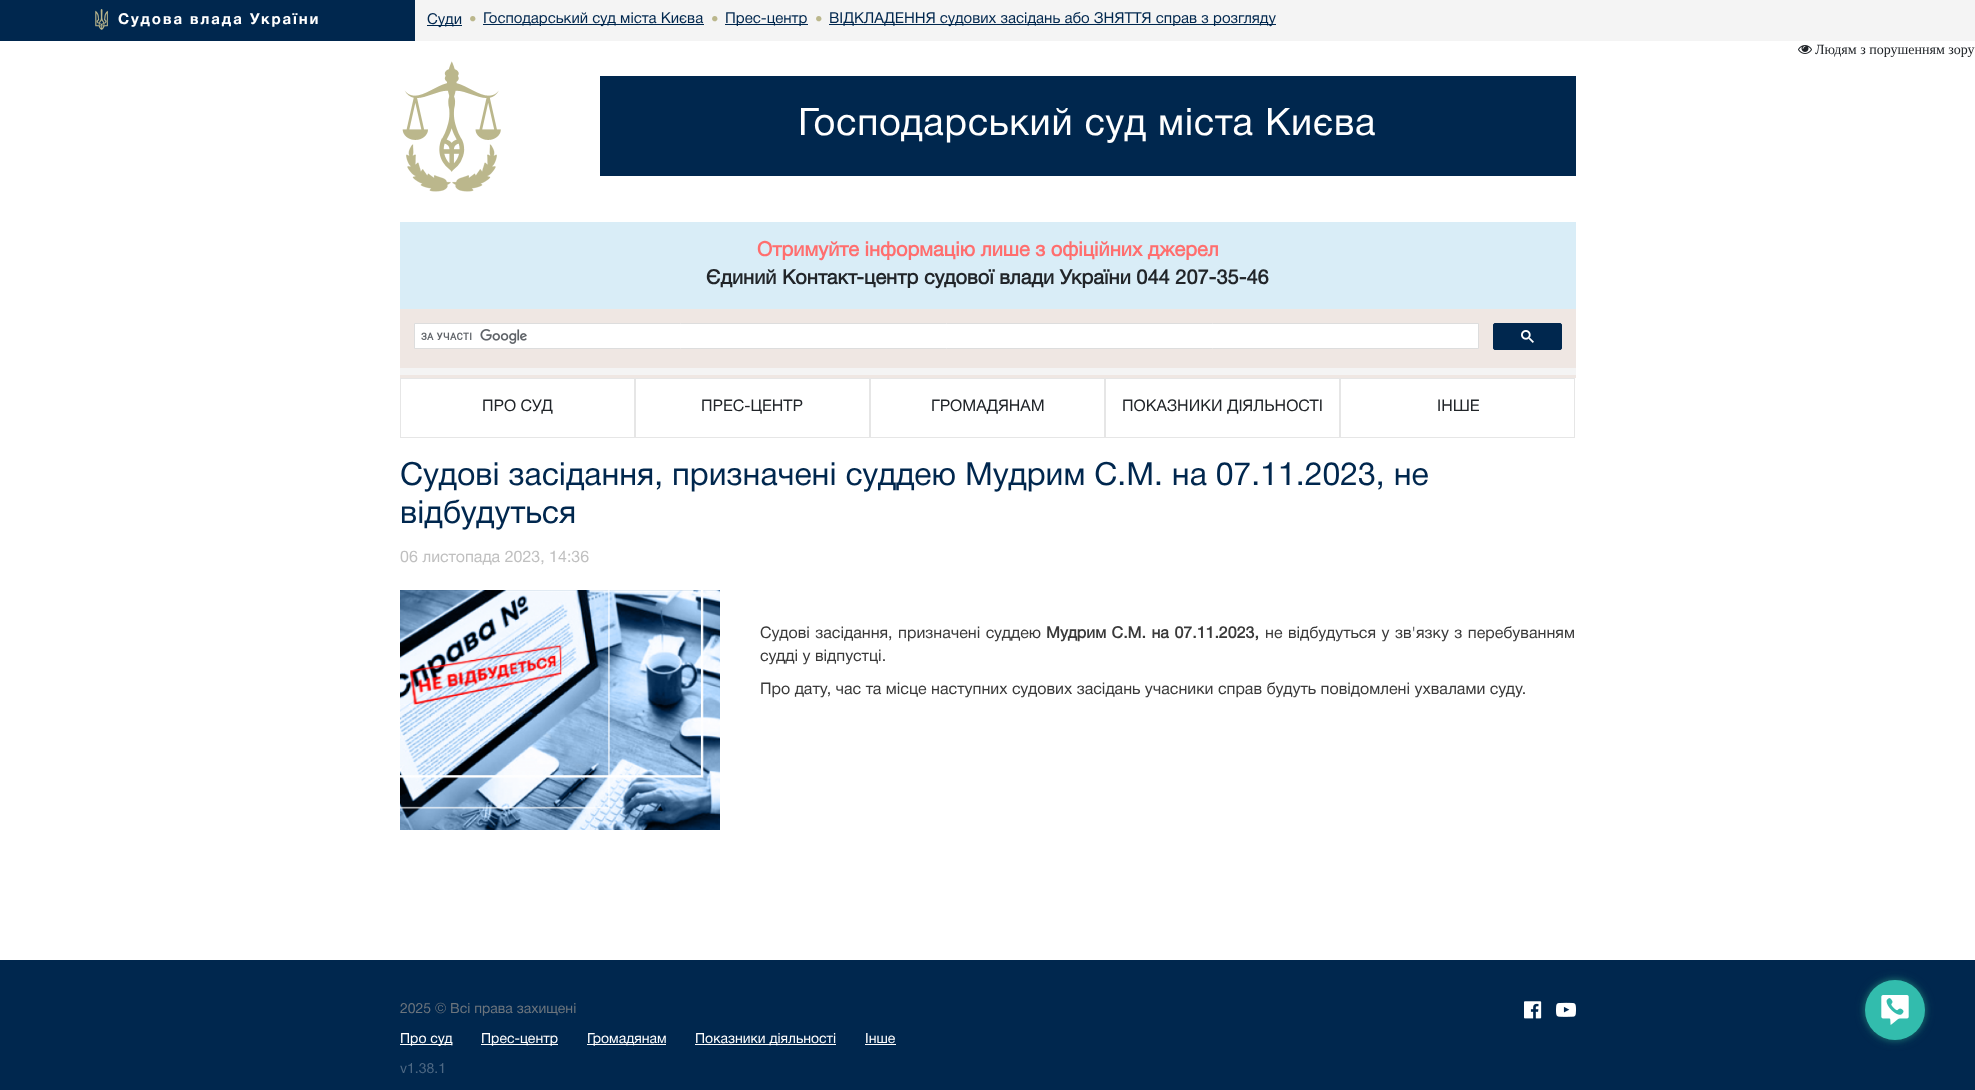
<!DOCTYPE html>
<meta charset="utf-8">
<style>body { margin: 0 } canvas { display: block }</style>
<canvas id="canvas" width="1975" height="1090"></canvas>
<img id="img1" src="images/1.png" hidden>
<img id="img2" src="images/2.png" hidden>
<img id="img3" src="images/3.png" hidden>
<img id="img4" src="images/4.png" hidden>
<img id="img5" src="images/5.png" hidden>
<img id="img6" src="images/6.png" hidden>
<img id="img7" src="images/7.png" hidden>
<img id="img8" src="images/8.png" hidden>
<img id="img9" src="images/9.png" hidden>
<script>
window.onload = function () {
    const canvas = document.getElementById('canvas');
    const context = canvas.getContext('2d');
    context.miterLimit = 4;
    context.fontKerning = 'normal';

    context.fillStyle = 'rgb(255, 255, 255)';
    context.fillRect(0, 0, 1975, 1090);
    context.fillStyle = 'rgb(244, 244, 244)';
    context.fillRect(415, 0, 1560, 41);
    context.fillStyle = 'rgb(0, 39, 78)';
    context.fillRect(0, 0, 415, 41);
    context.drawImage(document.getElementById('img1'), 95, 9, 13, 21);
    context.fillRect(427, 25, 35, 1);
    context.fillRect(483, 24, 221, 1);
    context.fillRect(725, 24, 83, 1);
    context.fillRect(829, 24, 447, 1);
    context.drawImage(document.getElementById('img2'), 1798, 45, 14, 9);
    context.drawImage(document.getElementById('img3'), 402, 61, 99, 131);
    context.fillRect(600, 76, 976, 100);
    context.fillStyle = 'rgb(217, 237, 247)';
    context.fillRect(400, 222, 1176, 87);
    context.fillStyle = 'rgb(244, 244, 244)';
    context.fillRect(400, 368, 1176, 7);
    context.fillStyle = 'rgb(239, 231, 227)';
    context.fillRect(400, 309, 1176, 59);
    context.fillStyle = 'rgb(255, 255, 255)';
    context.beginPath();
    context.rect(414.5, 323.5, 1064, 25);
    context.fill();
    context.strokeStyle = 'rgb(221, 221, 221)';
    context.stroke();
    context.drawImage(document.getElementById('img4'), 421, 329, 106, 15);
    context.fillStyle = 'rgb(0, 39, 78)';
    context.beginPath();
    context.roundRect(1493.5, 323.5, 68, 26, 1.5);
    context.fill();
    context.strokeStyle = 'rgb(0, 39, 78)';
    context.stroke();
    context.drawImage(document.getElementById('img5'), 1521, 330, 13, 13);
    context.fillStyle = 'rgb(239, 231, 227)';
    context.fillRect(400, 375, 1176, 3);
    context.strokeStyle = 'rgb(230, 230, 230)';
    context.strokeRect(400.5, 378.5, 234, 59);
    context.strokeRect(635.5, 378.5, 234, 59);
    context.strokeRect(870.5, 378.5, 234, 59);
    context.strokeRect(1105.5, 378.5, 234, 59);
    context.strokeRect(1340.5, 378.5, 234, 59);
    context.drawImage(document.getElementById('img6'), 400, 590, 320, 240);
    context.fillStyle = 'rgb(0, 39, 78)';
    context.fillRect(0, 960, 1975, 130);
    context.drawImage(document.getElementById('img7'), 1524, 1001, 18, 18);
    context.drawImage(document.getElementById('img8'), 1556, 1002, 20, 15);
    context.fillStyle = 'rgb(255, 255, 255)';
    context.fillRect(400, 1044, 52, 1);
    context.fillRect(481, 1044, 77, 1);
    context.fillRect(587, 1044, 79, 1);
    context.fillRect(695, 1044, 141, 1);
    context.fillRect(865, 1044, 31, 1);
    context.fillStyle = 'rgba(33, 130, 119, 0.42)';
    context.filter = 'blur(5px)';
    context.beginPath();
    context.roundRect(1864, 979, 62, 62, 31);
    context.fill();
    context.filter = 'none';
    context.fillStyle = 'rgba(33, 130, 119, 0.46)';
    context.filter = 'blur(2.5px)';
    context.beginPath();
    context.roundRect(1864, 979, 62, 62, 31);
    context.fill();
    context.filter = 'none';
    context.fillStyle = 'rgb(50, 188, 173)';
    context.beginPath();
    context.arc(1895, 1010, 30, 0, 2 * Math.PI);
    context.fill();
    context.drawImage(document.getElementById('img9'), 1881, 995, 28, 30);
    context.letterSpacing = '1.9px';
    context.font = 'bold 15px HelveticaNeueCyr';
    context.fillStyle = 'rgb(255, 255, 255)';
    context.fillText('Судова влада України', 118, 24);
    context.letterSpacing = '0px';
    context.font = '15px HelveticaNeueCyr';
    context.fillStyle = 'rgb(0, 39, 78)';
    context.fillText('Суди', 427, 24);
    context.letterSpacing = '1.9px';
    context.font = 'bold 15px HelveticaNeueCyr';
    context.fillStyle = 'rgb(187, 183, 140)';
    context.fillText('•', 469, 24);
    context.letterSpacing = '0px';
    context.font = '15px HelveticaNeueCyr';
    context.fillStyle = 'rgb(0, 39, 78)';
    context.fillText('Господарський суд міста Києва', 483, 23);
    context.letterSpacing = '1.9px';
    context.font = 'bold 15px HelveticaNeueCyr';
    context.fillStyle = 'rgb(187, 183, 140)';
    context.fillText('•', 711, 24);
    context.letterSpacing = '0px';
    context.font = '15px HelveticaNeueCyr';
    context.fillStyle = 'rgb(0, 39, 78)';
    context.fillText('Прес-центр', 725, 23);
    context.letterSpacing = '1.9px';
    context.font = 'bold 15px HelveticaNeueCyr';
    context.fillStyle = 'rgb(187, 183, 140)';
    context.fillText('•', 815, 24);
    context.letterSpacing = '0px';
    context.font = '15px HelveticaNeueCyr';
    context.fillStyle = 'rgb(0, 39, 78)';
    context.fillText('ВІДКЛАДЕННЯ судових засідань або ЗНЯТТЯ справ з розгляду', 829, 23);
    context.font = '14px Liberation Serif';
    context.fillStyle = 'rgb(33, 37, 41)';
    context.fillText('Людям з порушенням зору', 1815, 54);
    context.letterSpacing = '0.7px';
    context.font = '38px HelveticaNeueCyr';
    context.fillStyle = 'rgb(255, 255, 255)';
    context.fillText('Господарський суд міста Києва', 798, 135);
    context.letterSpacing = '0px';
    context.font = 'bold 20px "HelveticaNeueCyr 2"';
    context.fillStyle = 'rgb(255, 110, 110)';
    context.fillText('Отримуйте інформацію лише з офіційних джерел', 757, 256);
    context.fillStyle = 'rgb(33, 37, 41)';
    context.fillText('Єдиний Контакт-центр судової влади України 044 207-35-46', 706, 284);
    context.font = '16px HelveticaNeueCyr';
    context.fillText('ПРО СУД', 482, 411);
    context.fillText('ПРЕС-ЦЕНТР', 701, 411);
    context.fillText('ГРОМАДЯНАМ', 931, 411);
    context.fillText('ПОКАЗНИКИ ДІЯЛЬНОСТІ', 1122, 411);
    context.fillText('ІНШЕ', 1437, 411);
    context.font = '32px HelveticaNeueCyr';
    context.fillStyle = 'rgb(0, 39, 78)';
    context.fillText('Судові засідання, призначені суддею Мудрим С.М. на 07.11.2023, не', 400, 485);
    context.fillText('відбудуться', 400, 523);
    context.font = '16px HelveticaNeueCyr';
    context.fillStyle = 'rgb(192, 192, 192)';
    context.fillText('06 листопада 2023, 14:36', 400, 562);
    context.wordSpacing = '1px';
    context.fillStyle = 'rgb(58, 58, 58)';
    context.fillText('Судові засідання, призначені суддею', 760, 638);
    context.font = 'bold 16px "HelveticaNeueCyr 2"';
    context.fillText('Мудрим С.М. на 07.11.2023,', 1046, 638);
    context.font = '16px HelveticaNeueCyr';
    context.fillText('не відбудуться у зв\'язку з перебуванням', 1265, 638);
    context.wordSpacing = '0px';
    context.fillText('судді у відпустці.', 760, 661);
    context.fillText('Про дату, час та місце наступних судових засідань учасники справ будуть повідомлені ухвалами суду.', 760, 694);
    context.font = '14px HelveticaNeueCyr';
    context.fillStyle = 'rgb(108, 117, 125)';
    context.fillText('2025 © Всі права захищені', 400, 1013);
    context.fillStyle = 'rgb(255, 255, 255)';
    context.fillText('Про суд', 400, 1043);
    context.fillText('Прес-центр', 481, 1043);
    context.fillText('Громадянам', 587, 1043);
    context.fillText('Показники діяльності', 695, 1043);
    context.fillText('Інше', 865, 1043);
    context.fillStyle = 'rgb(77, 104, 131)';
    context.fillText('v1.38.1', 400, 1073);
};
</script>
